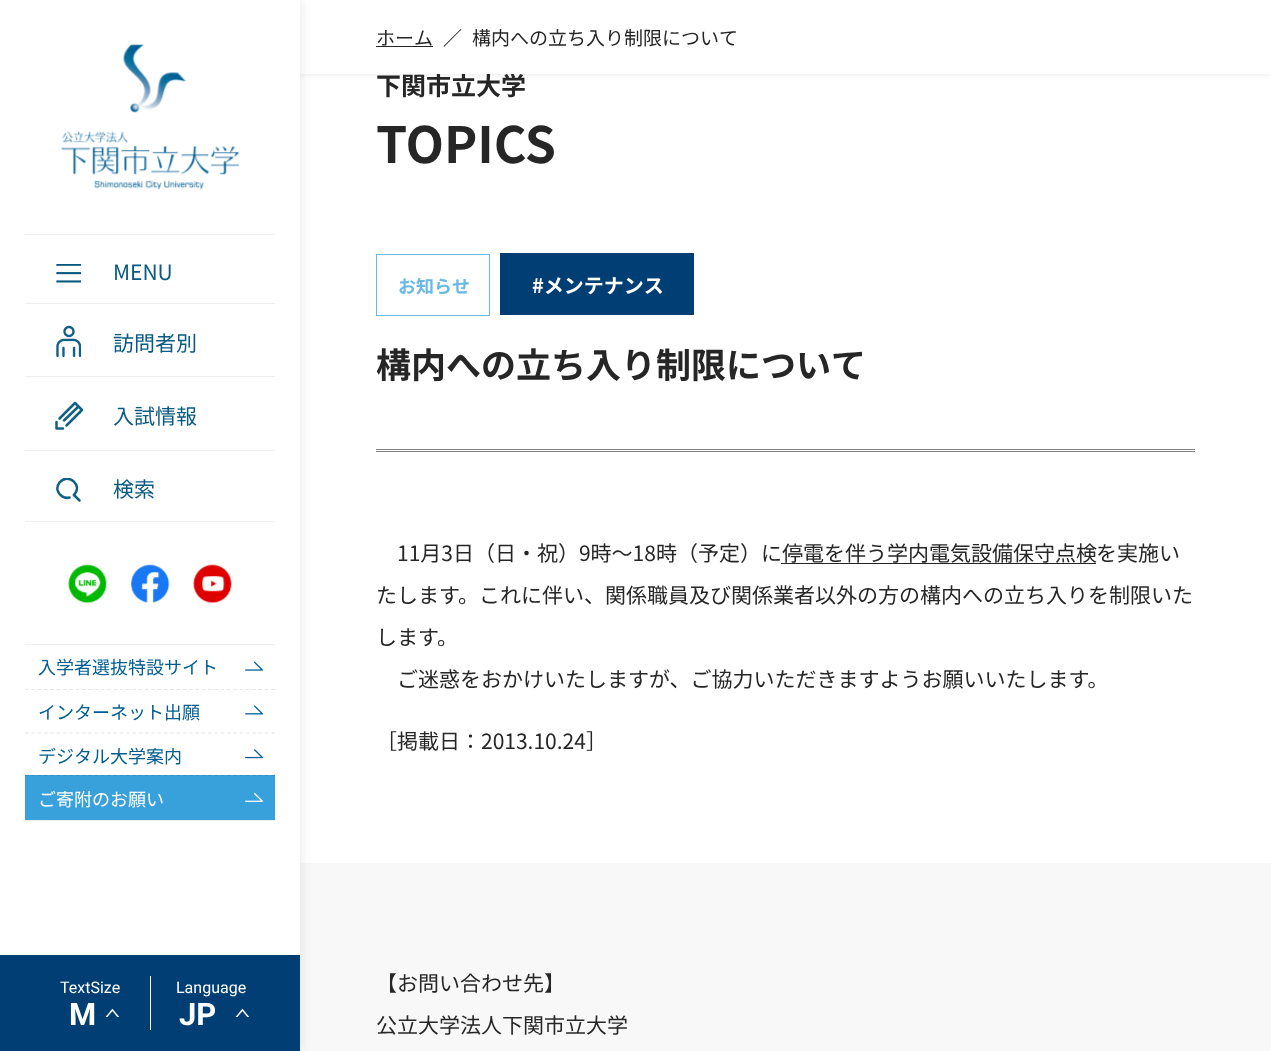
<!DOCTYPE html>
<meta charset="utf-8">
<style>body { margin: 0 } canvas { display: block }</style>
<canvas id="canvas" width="1271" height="1051"></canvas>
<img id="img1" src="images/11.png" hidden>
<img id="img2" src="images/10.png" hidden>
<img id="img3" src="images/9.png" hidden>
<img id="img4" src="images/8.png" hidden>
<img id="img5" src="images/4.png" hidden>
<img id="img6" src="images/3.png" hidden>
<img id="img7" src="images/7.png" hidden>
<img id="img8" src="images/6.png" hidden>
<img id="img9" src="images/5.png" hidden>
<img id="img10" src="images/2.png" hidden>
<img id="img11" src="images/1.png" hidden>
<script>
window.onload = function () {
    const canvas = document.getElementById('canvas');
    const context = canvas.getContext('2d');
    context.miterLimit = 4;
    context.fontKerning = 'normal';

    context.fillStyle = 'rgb(255, 255, 255)';
    context.fillRect(0, 0, 1271, 1051);
    context.fillStyle = 'rgba(0, 0, 0, 0.1)';
    context.filter = 'blur(3px)';
    context.beginPath();
    context.rect(300, 0, 971, 74);
    context.fill();
    context.filter = 'none';
    context.fillStyle = 'rgb(128, 128, 128)';
    context.fillRect(376, 449, 819, 1);
    context.fillRect(376, 451, 819, 1);
    context.strokeStyle = 'rgb(106, 184, 228)';
    context.strokeRect(376.5, 254.5, 113, 61);
    context.fillStyle = 'rgb(0, 62, 116)';
    context.fillRect(500, 253, 194, 62);
    context.fillStyle = 'rgb(38, 38, 38)';
    context.fillRect(781, 563, 315, 1);
    context.fillStyle = 'rgb(248, 248, 248)';
    context.fillRect(300, 863, 971, 188);
    context.font = 'bold 25px Noto Sans JP';
    context.fillStyle = 'rgb(38, 38, 38)';
    context.fillText('下関市立大学', 376, 95);
    context.fillStyle = 'rgb(255, 255, 255)';
    context.fillRect(300, 0, 971, 74);
    context.fillStyle = 'rgba(0, 0, 0, 0.1)';
    context.filter = 'blur(6px)';
    context.beginPath();
    context.rect(0, 0, 300, 1051);
    context.fill();
    context.filter = 'none';
    context.fillStyle = 'rgb(0, 62, 116)';
    context.fillRect(0, 955, 300, 96);
    context.font = 'bold 31px Roboto';
    context.fillStyle = 'rgb(255, 255, 255)';
    context.fillText('JP', 179, 1025);
    context.fillText('M', 69, 1025);
    context.font = '20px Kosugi';
    context.save();
    context.translate(250, 1018);
    context.rotate(-90 * Math.PI / 180);
    context.fillText('>', 0, 0);
    context.restore();
    context.save();
    context.translate(120, 1018);
    context.rotate(-90 * Math.PI / 180);
    context.fillText('>', 0, 0);
    context.restore();
    context.font = '16px Roboto';
    context.fillText('Language', 176, 993);
    context.fillRect(150, 976, 1, 54);
    context.fillText('TextSize', 60, 993);
    context.fillRect(0, 0, 300, 955);
    context.fillStyle = 'rgb(56, 160, 219)';
    context.fillRect(25, 775, 250, 45);
    context.drawImage(document.getElementById('img1'), 245, 793, 18, 9);
    context.font = '18px Noto Sans JP';
    context.fillStyle = 'rgb(255, 255, 255)';
    context.fillText('ご寄附のお願い', 38, 806);
    context.beginPath();
    context.moveTo(25, 775.5);
    context.lineTo(275, 775.5);
    context.strokeStyle = 'rgb(50, 144, 197)';
    context.lineWidth = 1.2;
    context.setLineDash([3.75, 2.56]);
    context.stroke();
    context.drawImage(document.getElementById('img2'), 245, 749, 18, 10);
    context.fillStyle = 'rgb(0, 93, 145)';
    context.fillText('デジタル大学案内', 38, 763);
    context.beginPath();
    context.moveTo(25, 733);
    context.lineTo(275, 733);
    context.strokeStyle = 'rgb(230, 230, 230)';
    context.stroke();
    context.drawImage(document.getElementById('img3'), 245, 705, 18, 10);
    context.fillText('インターネット出願', 38, 719);
    context.beginPath();
    context.moveTo(25, 689.5);
    context.lineTo(275, 689.5);
    context.stroke();
    context.drawImage(document.getElementById('img4'), 245, 661, 18, 10);
    context.fillText('入学者選抜特設サイト', 38, 674);
    context.fillStyle = 'rgb(238, 238, 238)';
    context.fillRect(25, 644, 250, 1);
    context.fillRect(25, 521, 250, 1);
    context.font = '21px Noto Sans JP';
    context.fillStyle = 'rgb(8, 90, 130)';
    context.fillText('検索', 113, 497);
    context.save();
    context.beginPath();
    context.rect(56, 478, 25, 25);
    context.clip();
    context.beginPath();
    context.moveTo(69.5, 497.5);
    context.bezierCurveTo(64.5, 499, 59, 495.5, 57.5, 490);
    context.bezierCurveTo(57, 487.5, 58, 484.5, 59.5, 482.5);
    context.bezierCurveTo(68, 472, 83.5, 485.5, 74, 495);
    context.strokeStyle = 'rgb(17, 96, 134)';
    context.lineWidth = 2.5;
    context.lineCap = 'round';
    context.lineJoin = 'round';
    context.setLineDash([]);
    context.stroke();
    context.restore();
    context.beginPath();
    context.moveTo(79.5, 500.5);
    context.lineTo(74, 495);
    context.strokeStyle = 'rgb(17, 96, 134)';
    context.lineWidth = 2.5;
    context.lineCap = 'round';
    context.lineJoin = 'round';
    context.setLineDash([]);
    context.stroke();
    context.fillStyle = 'rgb(238, 238, 238)';
    context.fillRect(25, 450, 250, 1);
    context.fillStyle = 'rgb(8, 90, 130)';
    context.fillText('入試情報', 113, 424);
    context.beginPath();
    context.moveTo(59.5, 418.5);
    context.lineTo(75, 403);
    context.lineTo(82, 410);
    context.lineTo(66.5, 425.5);
    context.moveTo(78.5, 406.5);
    context.lineTo(64, 420.5);
    context.moveTo(56.5, 422);
    context.lineTo(56.5, 428.5);
    context.lineTo(63, 428.5);
    context.stroke();
    context.fillStyle = 'rgb(238, 238, 238)';
    context.fillRect(25, 376, 250, 1);
    context.fillStyle = 'rgb(8, 90, 130)';
    context.fillText('訪問者別', 113, 351);
    context.drawImage(document.getElementById('img5'), 56, 325, 25, 32);
    context.fillStyle = 'rgb(238, 238, 238)';
    context.fillRect(25, 303, 250, 1);
    context.fillRect(25, 234, 250, 1);
    context.fillStyle = 'rgb(8, 90, 130)';
    context.fillText('MENU', 113, 280);
    context.drawImage(document.getElementById('img6'), 56, 264, 25, 19);
    context.drawImage(document.getElementById('img7'), 193, 564, 39, 39);
    context.drawImage(document.getElementById('img8'), 131, 564, 39, 39);
    context.drawImage(document.getElementById('img9'), 68, 564, 39, 39);
    context.drawImage(document.getElementById('img10'), 61, 131, 178, 59);
    context.drawImage(document.getElementById('img11'), 123, 44, 63, 69);
    context.fillStyle = 'rgb(238, 238, 238)';
    context.fillRect(25, 820, 250, 1);
    context.font = '19px Noto Sans JP';
    context.fillStyle = 'rgb(38, 38, 38)';
    context.fillText('構内への立ち入り制限について', 472, 45);
    context.fillText('／', 443, 45);
    context.fillText('ホーム', 376, 45);
    context.fillRect(376, 46, 57, 1);
    context.font = 'bold 50px Noto Sans JP';
    context.fillText('TOPICS', 376, 163);
    context.font = 'bold 18px Noto Sans JP';
    context.fillStyle = 'rgb(106, 184, 228)';
    context.fillText('お知らせ', 398, 293);
    context.font = 'bold 20px Noto Sans JP';
    context.fillStyle = 'rgb(255, 255, 255)';
    context.fillText('#メンテナンス', 532, 293);
    context.font = 'bold 35px Noto Sans JP';
    context.fillStyle = 'rgb(38, 38, 38)';
    context.fillText('構内への立ち入り制限について', 376, 378);
    context.font = '21px Noto Sans JP';
    context.fillText('11月3日（日・祝）9時～18時（予定）に', 397, 561);
    context.fillText('停電を伴う学内電気設備保守点検', 782, 561);
    context.fillText('を実施い', 1096, 561);
    context.fillText('たします。これに伴い、関係職員及び関係業者以外の方の構内への立ち入りを制限いた', 376, 603);
    context.fillText('します。', 376, 645);
    context.fillText('ご迷惑をおかけいたしますが、ご協力いただきますようお願いいたします。', 397, 687);
    context.fillText('［掲載日：2013.10.24］', 376, 749);
    context.fillText('【お問い合わせ先】', 376, 991);
    context.fillText('公立大学法人下関市立大学', 376, 1033);
};
</script>
